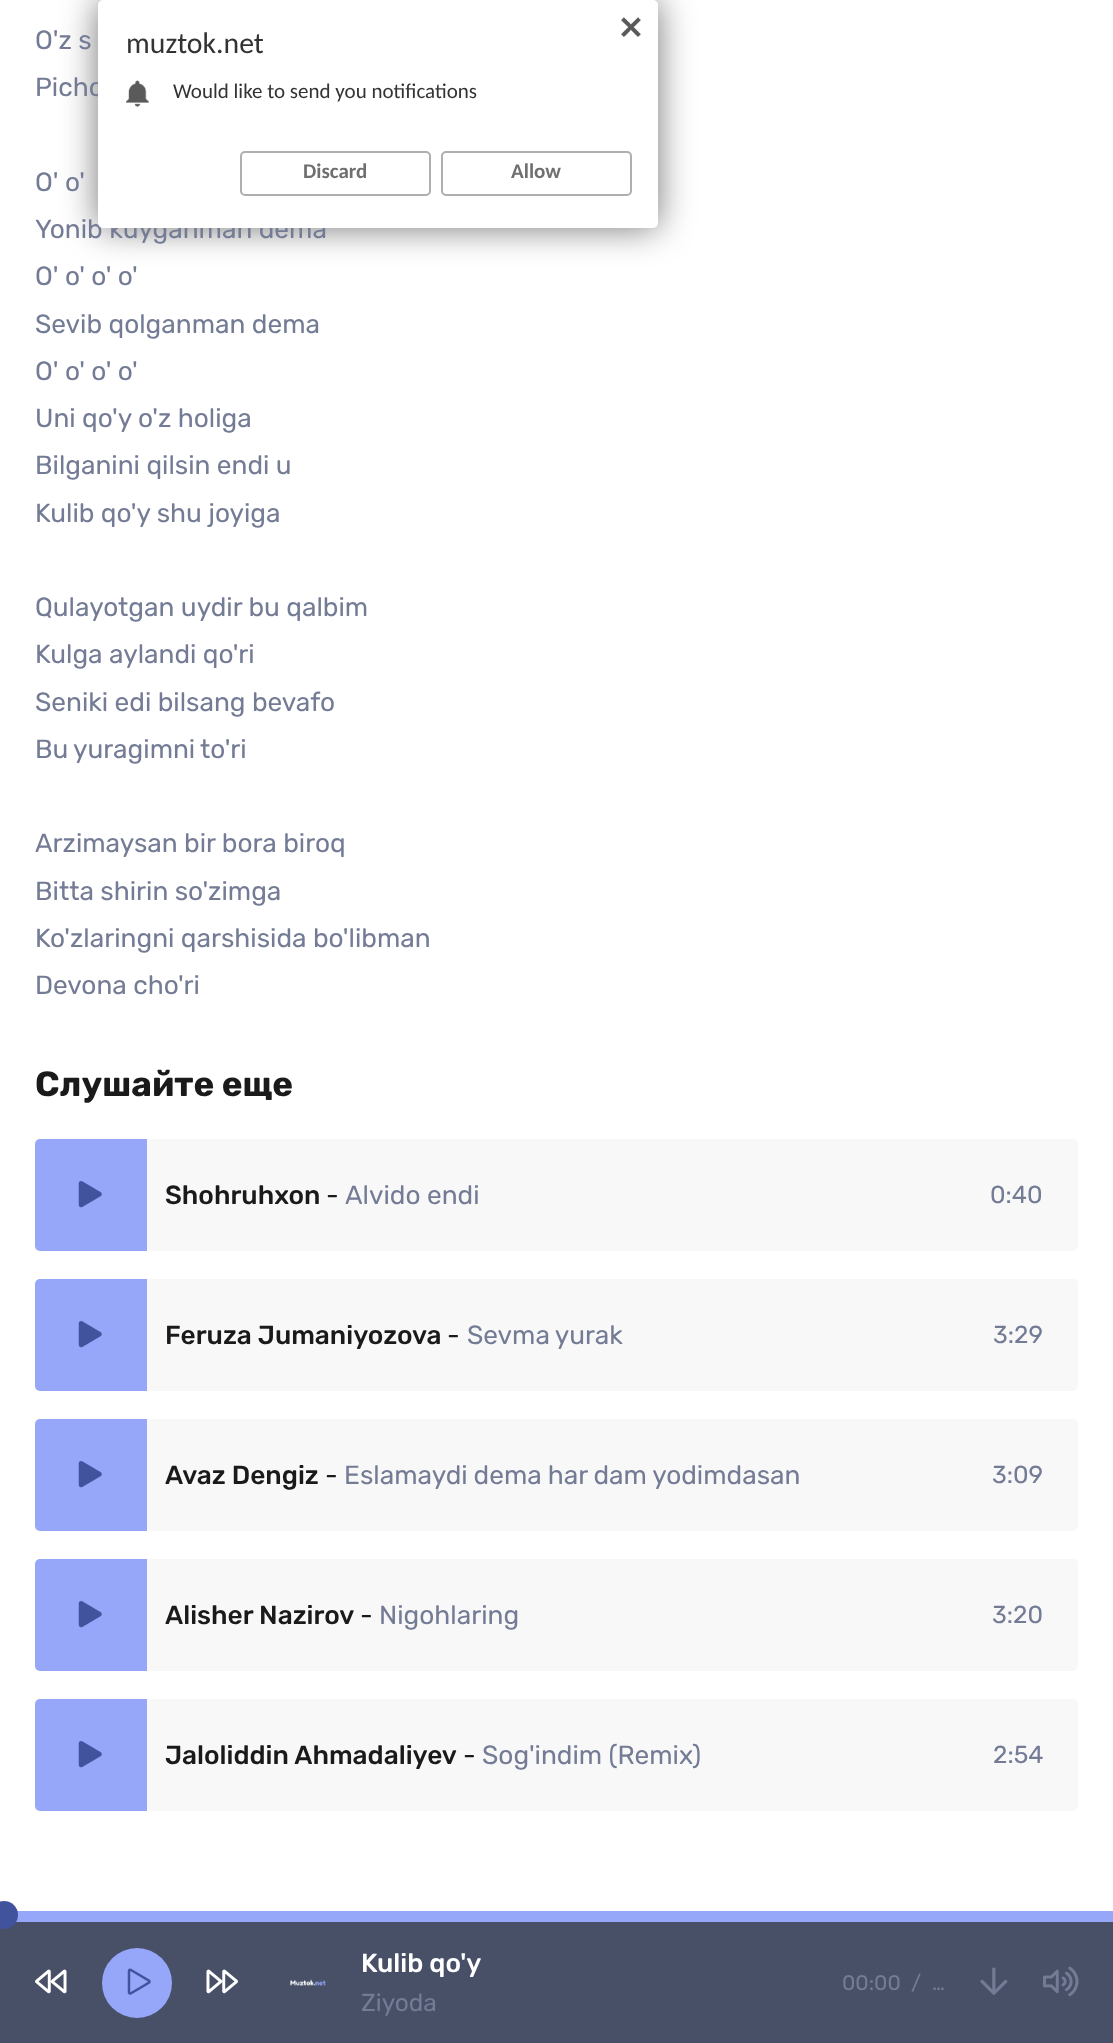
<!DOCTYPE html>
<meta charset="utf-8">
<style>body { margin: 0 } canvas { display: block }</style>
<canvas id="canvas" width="1113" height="2043"></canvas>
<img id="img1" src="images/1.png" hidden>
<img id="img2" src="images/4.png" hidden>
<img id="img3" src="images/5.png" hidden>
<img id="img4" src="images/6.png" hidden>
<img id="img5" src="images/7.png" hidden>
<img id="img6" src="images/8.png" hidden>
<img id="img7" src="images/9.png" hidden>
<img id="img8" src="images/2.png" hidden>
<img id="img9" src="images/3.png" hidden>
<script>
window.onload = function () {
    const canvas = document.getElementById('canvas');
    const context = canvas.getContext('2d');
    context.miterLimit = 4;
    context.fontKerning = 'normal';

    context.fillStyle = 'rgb(255, 255, 255)';
    context.fillRect(0, 0, 1113, 2043);
    context.fillStyle = 'rgb(248, 248, 249)';
    context.beginPath();
    context.roundRect(35, 1139, 1043, 112, 5);
    context.fill();
    context.fillStyle = 'rgb(150, 166, 249)';
    context.beginPath();
    context.roundRect(35, 1139, 112, 112, [5, 0, 0, 5]);
    context.fill();
    context.drawImage(document.getElementById('img1'), 78, 1181, 24, 27);
    context.fillStyle = 'rgb(248, 248, 249)';
    context.beginPath();
    context.roundRect(35, 1279, 1043, 112, 5);
    context.fill();
    context.fillStyle = 'rgb(150, 166, 249)';
    context.beginPath();
    context.roundRect(35, 1279, 112, 112, [5, 0, 0, 5]);
    context.fill();
    context.drawImage(document.getElementById('img1'), 78, 1321, 24, 27);
    context.fillStyle = 'rgb(248, 248, 249)';
    context.beginPath();
    context.roundRect(35, 1419, 1043, 112, 5);
    context.fill();
    context.fillStyle = 'rgb(150, 166, 249)';
    context.beginPath();
    context.roundRect(35, 1419, 112, 112, [5, 0, 0, 5]);
    context.fill();
    context.drawImage(document.getElementById('img1'), 78, 1461, 24, 27);
    context.fillStyle = 'rgb(248, 248, 249)';
    context.beginPath();
    context.roundRect(35, 1559, 1043, 112, 5);
    context.fill();
    context.fillStyle = 'rgb(150, 166, 249)';
    context.beginPath();
    context.roundRect(35, 1559, 112, 112, [5, 0, 0, 5]);
    context.fill();
    context.drawImage(document.getElementById('img1'), 78, 1601, 24, 27);
    context.fillStyle = 'rgb(248, 248, 249)';
    context.beginPath();
    context.roundRect(35, 1699, 1043, 112, 5);
    context.fill();
    context.fillStyle = 'rgb(150, 166, 249)';
    context.beginPath();
    context.roundRect(35, 1699, 112, 112, [5, 0, 0, 5]);
    context.fill();
    context.drawImage(document.getElementById('img1'), 78, 1741, 24, 27);
    context.fillStyle = 'rgba(0, 0, 0, 0.54)';
    context.filter = 'blur(17.5px)';
    context.beginPath();
    context.roundRect(98, 0, 560, 228, 5);
    context.fill();
    context.filter = 'none';
    context.fillStyle = 'rgb(72, 80, 104)';
    context.fillRect(0, 1922, 1113, 121);
    context.fillStyle = 'rgb(150, 166, 249)';
    context.fillRect(16, 1911, 1097, 11);
    context.fillStyle = 'rgb(65, 83, 157)';
    context.beginPath();
    context.arc(4, 1915, 14, 0, 2 * Math.PI);
    context.fill();
    context.drawImage(document.getElementById('img2'), 35, 1969, 32, 25);
    context.fillStyle = 'rgb(150, 166, 249)';
    context.beginPath();
    context.arc(137, 1983, 35, 0, 2 * Math.PI);
    context.fill();
    context.drawImage(document.getElementById('img3'), 127, 1968, 24, 27);
    context.drawImage(document.getElementById('img4'), 206, 1969, 32, 25);
    context.drawImage(document.getElementById('img5'), 290, 1979, 36, 7);
    context.drawImage(document.getElementById('img6'), 980, 1967, 28, 28);
    context.drawImage(document.getElementById('img7'), 1043, 1966, 36, 31);
    context.font = '26.25px Rubik';
    context.fillStyle = 'rgb(115, 123, 149)';
    context.fillText('O\'z s', 35, 49);
    context.fillText('Picho', 35, 96);
    context.fillText('O\' o\'', 35, 191);
    context.fillText('Yonib kuyganman dema', 35, 238);
    context.fillText('O\' o\' o\' o\'', 35, 285);
    context.fillText('Sevib qolganman dema', 35, 333);
    context.fillText('O\' o\' o\' o\'', 35, 380);
    context.fillText('Uni qo\'y o\'z holiga', 35, 427);
    context.fillText('Bilganini qilsin endi u', 35, 474);
    context.fillText('Kulib qo\'y shu joyiga', 35, 522);
    context.fillText('Qulayotgan uydir bu qalbim', 35, 616);
    context.fillText('Kulga aylandi qo\'ri', 35, 663);
    context.fillText('Seniki edi bilsang bevafo', 35, 711);
    context.wordSpacing = '-1px';
    context.fillText('Bu yuragimni to\'ri', 35, 758);
    context.wordSpacing = '0px';
    context.fillText('Arzimaysan bir bora biroq', 35, 852);
    context.fillText('Bitta shirin so\'zimga', 35, 900);
    context.fillText('Ko\'zlaringni qarshisida bo\'libman', 35, 947);
    context.fillText('Devona cho\'ri', 35, 994);
    context.font = 'bold 35px Rubik';
    context.fillStyle = 'rgb(26, 26, 26)';
    context.fillText('Слушайте еще', 35, 1096);
    context.font = '500 26.25px Rubik';
    context.fillText('Shohruhxon', 165, 1204);
    context.font = '26.25px Rubik';
    context.fillText('-', 326, 1204);
    context.fillStyle = 'rgb(115, 123, 149)';
    context.fillText('Alvido endi', 345, 1204);
    context.font = '24.5px Rubik';
    context.fillText('0:40', 990, 1203);
    context.font = '500 26.25px Rubik';
    context.fillStyle = 'rgb(26, 26, 26)';
    context.fillText('Feruza Jumaniyozova', 165, 1344);
    context.font = '26.25px Rubik';
    context.fillText('-', 447, 1344);
    context.wordSpacing = '-1px';
    context.fillStyle = 'rgb(115, 123, 149)';
    context.fillText('Sevma yurak', 467, 1344);
    context.wordSpacing = '0px';
    context.font = '24.5px Rubik';
    context.fillText('3:29', 993, 1343);
    context.font = '500 26.25px Rubik';
    context.fillStyle = 'rgb(26, 26, 26)';
    context.fillText('Avaz Dengiz', 165, 1484);
    context.font = '26.25px Rubik';
    context.fillText('-', 325, 1484);
    context.wordSpacing = '-0.5px';
    context.fillStyle = 'rgb(115, 123, 149)';
    context.fillText('Eslamaydi dema har dam yodimdasan', 344, 1484);
    context.wordSpacing = '0px';
    context.font = '24.5px Rubik';
    context.fillText('3:09', 992, 1483);
    context.font = '500 26.25px Rubik';
    context.fillStyle = 'rgb(26, 26, 26)';
    context.fillText('Alisher Nazirov', 165, 1624);
    context.font = '26.25px Rubik';
    context.fillText('-', 360, 1624);
    context.fillStyle = 'rgb(115, 123, 149)';
    context.fillText('Nigohlaring', 379, 1624);
    context.font = '24.5px Rubik';
    context.fillText('3:20', 992, 1623);
    context.font = '500 26.25px Rubik';
    context.fillStyle = 'rgb(26, 26, 26)';
    context.fillText('Jaloliddin Ahmadaliyev', 165, 1764);
    context.font = '26.25px Rubik';
    context.fillText('-', 463, 1764);
    context.fillStyle = 'rgb(115, 123, 149)';
    context.fillText('Sog\'indim (Remix)', 482, 1764);
    context.font = '24.5px Rubik';
    context.fillText('2:54', 993, 1763);
    context.fillStyle = 'rgb(255, 255, 255)';
    context.beginPath();
    context.roundRect(98, 0, 560, 228, 5);
    context.fill();
    context.drawImage(document.getElementById('img8'), 621, 17, 20, 20);
    context.font = '29.75px Carlito';
    context.fillStyle = 'rgb(51, 51, 51)';
    context.fillText('muztok.net', 126, 53);
    context.drawImage(document.getElementById('img9'), 126, 80, 23, 27);
    context.font = '21px Carlito';
    context.fillText('Would like to send you notifications', 173, 98);
    context.beginPath();
    context.roundRect(241, 152, 189, 43, 4);
    context.strokeStyle = 'rgb(175, 175, 175)';
    context.lineWidth = 2;
    context.stroke();
    context.font = 'bold 21px Carlito';
    context.fillStyle = 'rgb(111, 111, 111)';
    context.fillText('Discard', 303, 178);
    context.beginPath();
    context.roundRect(442, 152, 189, 43, 4);
    context.stroke();
    context.fillText('Allow', 511, 178);
    context.font = '500 26.25px Rubik';
    context.fillStyle = 'rgb(255, 255, 255)';
    context.fillText('Kulib qo\'y', 361, 1972);
    context.font = '24.5px Rubik';
    context.fillStyle = 'rgb(115, 123, 149)';
    context.fillText('Ziyoda', 361, 2011);
    context.font = '21px Rubik';
    context.fillText('00:00', 842, 1990);
    context.fillText('/', 911, 1990);
    context.fillText('…', 932, 1990);
};
</script>
